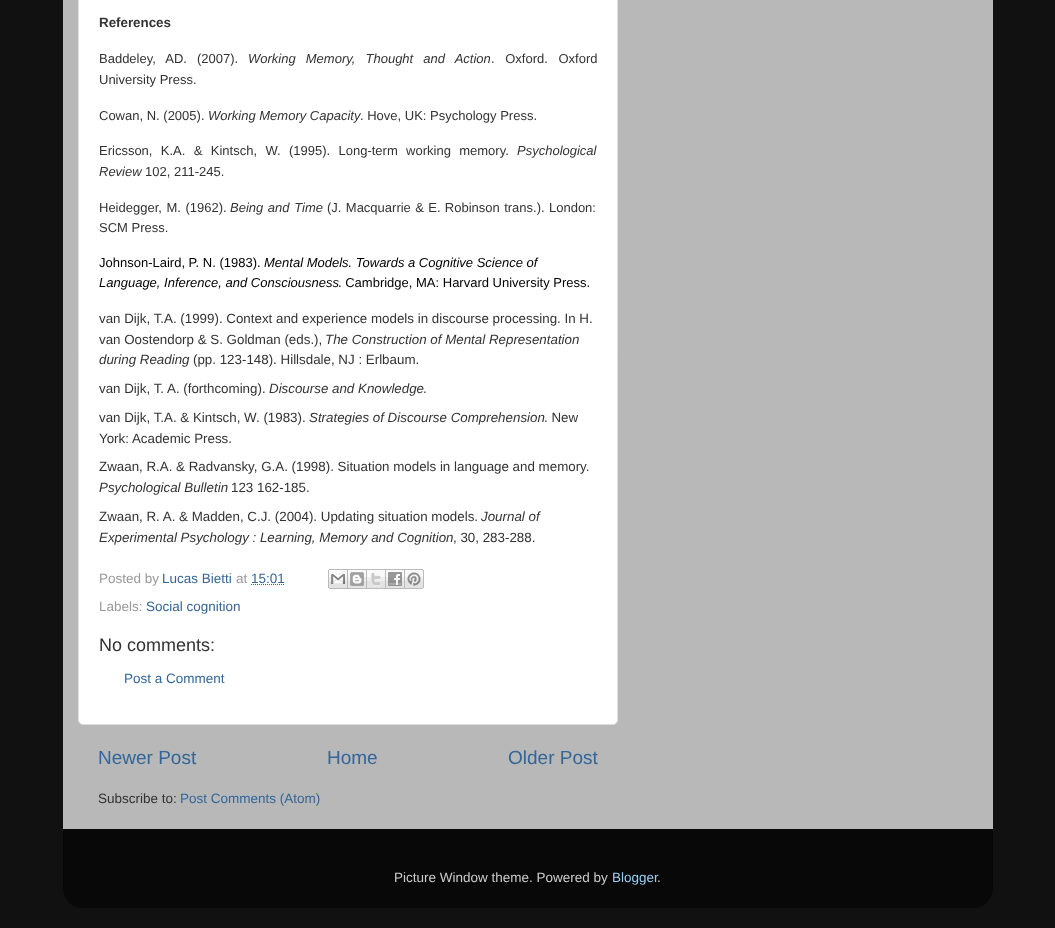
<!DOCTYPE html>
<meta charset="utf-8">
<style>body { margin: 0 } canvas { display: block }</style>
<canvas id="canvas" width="1055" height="928"></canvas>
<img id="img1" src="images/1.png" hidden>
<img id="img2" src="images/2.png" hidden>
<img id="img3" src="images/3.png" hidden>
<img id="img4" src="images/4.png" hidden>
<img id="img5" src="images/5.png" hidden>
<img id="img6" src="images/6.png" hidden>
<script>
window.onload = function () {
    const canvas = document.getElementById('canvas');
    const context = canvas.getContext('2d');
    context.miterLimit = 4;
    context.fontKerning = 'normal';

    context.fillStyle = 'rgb(17, 17, 17)';
    context.fillRect(0, 0, 1055, 928);
    context.fillStyle = 'rgb(184, 184, 184)';
    context.fillRect(63, 0, 930, 829);
    context.fillStyle = 'rgb(255, 255, 255)';
    context.beginPath();
    context.roundRect(78.5, -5.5, 539, 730, 4.5);
    context.fill();
    context.strokeStyle = 'rgb(221, 221, 221)';
    context.stroke();
    context.beginPath();
    context.moveTo(251, 584.5);
    context.lineTo(284.5, 584.5);
    context.strokeStyle = 'rgb(51, 102, 153)';
    context.setLineDash([1, 1]);
    context.stroke();
    context.drawImage(document.getElementById('img1'), 328, 569, 20, 20);
    context.drawImage(document.getElementById('img2'), 348, 569, 19, 20);
    context.drawImage(document.getElementById('img3'), 367, 569, 19, 20);
    context.drawImage(document.getElementById('img4'), 386, 569, 19, 20);
    context.drawImage(document.getElementById('img5'), 405, 569, 19, 20);
    context.drawImage(document.getElementById('img6'), 63, 829, 930, 79);
    context.font = 'bold 13.35px Liberation Sans';
    context.fillStyle = 'rgb(51, 51, 51)';
    context.fillText('References', 99, 27);
    context.wordSpacing = '6.5px';
    context.font = '13px Liberation Sans';
    context.fillText('Baddeley, AD. (2007).', 99, 63);
    context.font = 'italic 13px Liberation Sans';
    context.fillText('Working Memory, Thought and Action', 248, 63);
    context.wordSpacing = '7px';
    context.font = '13px Liberation Sans';
    context.fillText('. Oxford. Oxford', 491, 63);
    context.wordSpacing = '0px';
    context.fillText('University Press.', 99, 84);
    context.fillText('Cowan, N. (2005).', 99, 120);
    context.font = 'italic 13px Liberation Sans';
    context.fillText('Working Memory Capacity', 208, 120);
    context.font = '13px Liberation Sans';
    context.fillText('. Hove, UK: Psychology Press.', 360, 120);
    context.wordSpacing = '4.75px';
    context.fillText('Ericsson, K.A. & Kintsch, W. (1995). Long-term working memory.', 99, 155);
    context.wordSpacing = '0px';
    context.font = 'italic 13px Liberation Sans';
    context.fillText('Psychological', 517, 155);
    context.fillText('Review', 99, 176);
    context.font = '13px Liberation Sans';
    context.fillText('102, 211-245.', 145, 176);
    context.wordSpacing = '1px';
    context.fillText('Heidegger, M. (1962).', 99, 212);
    context.font = 'italic 13px Liberation Sans';
    context.fillText('Being and Time', 230, 212);
    context.wordSpacing = '0.75px';
    context.font = '13px Liberation Sans';
    context.fillText('(J. Macquarrie & E. Robinson trans.). London:', 327, 212);
    context.wordSpacing = '0px';
    context.fillText('SCM Press.', 99, 232);
    context.fillStyle = 'rgb(0, 0, 0)';
    context.fillText('Johnson-Laird, P. N. (1983).', 99, 267);
    context.font = 'italic 13px Liberation Sans';
    context.fillText('Mental Models. Towards a Cognitive Science of', 264, 267);
    context.fillText('Language, Inference, and Consciousness', 99, 287);
    context.font = '13px Liberation Sans';
    context.fillText('. Cambridge, MA: Harvard University Press.', 338, 287);
    context.font = '13.35px Liberation Sans';
    context.fillStyle = 'rgb(51, 51, 51)';
    context.fillText('van Dijk, T.A. (1999). Context and experience models in discourse processing. In H.', 99, 323);
    context.fillText('van Oostendorp & S. Goldman (eds.),', 99, 344);
    context.font = 'italic 13.35px Liberation Sans';
    context.fillText('The Construction of Mental Representation', 325, 344);
    context.fillText('during Reading', 99, 364);
    context.font = '13.35px Liberation Sans';
    context.fillText('(pp. 123-148). Hillsdale, NJ : Erlbaum.', 193, 364);
    context.fillText('van Dijk, T. A. (forthcoming).', 99, 393);
    context.font = 'italic 13.35px Liberation Sans';
    context.fillText('Discourse and Knowledge', 269, 393);
    context.font = '13.35px Liberation Sans';
    context.fillText('.', 423, 393);
    context.fillText('van Dijk, T.A. & Kintsch, W. (1983).', 99, 422);
    context.font = 'italic 13.35px Liberation Sans';
    context.fillText('Strategies of Discourse Comprehension', 309, 422);
    context.font = '13.35px Liberation Sans';
    context.fillText('. New', 544, 422);
    context.fillText('York: Academic Press.', 99, 443);
    context.fillText('Zwaan, R.A. & Radvansky, G.A. (1998). Situation models in language and memory.', 99, 471);
    context.font = 'italic 13.35px Liberation Sans';
    context.fillText('Psychological Bulletin', 99, 492);
    context.font = '13.35px Liberation Sans';
    context.fillText('123 162-185.', 231, 492);
    context.fillText('Zwaan, R. A. & Madden, C.J. (2004). Updating situation models.', 99, 521);
    context.font = 'italic 13.35px Liberation Sans';
    context.fillText('Journal of', 481, 521);
    context.fillText('Experimental Psychology : Learning, Memory and Cognition', 99, 542);
    context.font = '13.35px Liberation Sans';
    context.fillText(', 30, 283-288.', 453, 542);
    context.font = '13.5px Liberation Sans';
    context.fillStyle = 'rgb(153, 153, 153)';
    context.fillText('Posted by', 99, 583);
    context.fillStyle = 'rgb(51, 102, 153)';
    context.fillText('Lucas Bietti', 162, 583);
    context.fillStyle = 'rgb(153, 153, 153)';
    context.fillText('at', 236, 583);
    context.fillStyle = 'rgb(51, 102, 153)';
    context.fillText('15:01', 251, 583);
    context.fillStyle = 'rgb(153, 153, 153)';
    context.fillText('Labels:', 99, 611);
    context.fillStyle = 'rgb(51, 102, 153)';
    context.fillText('Social cognition', 146, 611);
    context.font = '18px Liberation Sans';
    context.fillStyle = 'rgb(51, 51, 51)';
    context.fillText('No comments:', 99, 651);
    context.font = '13.5px Liberation Sans';
    context.fillStyle = 'rgb(51, 102, 153)';
    context.fillText('Post a Comment', 124, 683);
    context.font = '19px Liberation Sans';
    context.fillText('Newer Post', 98, 764);
    context.fillText('Home', 327, 764);
    context.fillText('Older Post', 508, 764);
    context.font = '13.5px Liberation Sans';
    context.fillStyle = 'rgb(51, 51, 51)';
    context.fillText('Subscribe to:', 98, 803);
    context.fillStyle = 'rgb(51, 102, 153)';
    context.fillText('Post Comments (Atom)', 180, 803);
    context.fillStyle = 'rgb(204, 204, 204)';
    context.fillText('Picture Window theme. Powered by', 394, 882);
    context.fillStyle = 'rgb(153, 204, 238)';
    context.fillText('Blogger', 612, 882);
    context.fillStyle = 'rgb(204, 204, 204)';
    context.fillText('.', 657, 882);
};
</script>
